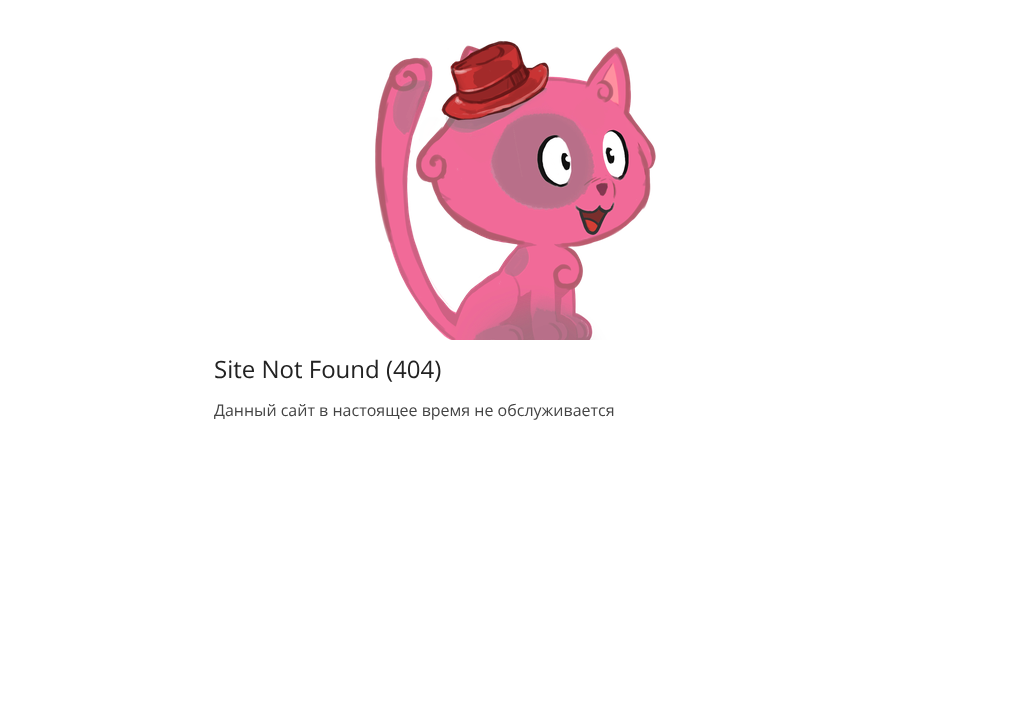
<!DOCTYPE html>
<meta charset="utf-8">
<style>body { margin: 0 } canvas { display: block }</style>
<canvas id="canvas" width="1027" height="721"></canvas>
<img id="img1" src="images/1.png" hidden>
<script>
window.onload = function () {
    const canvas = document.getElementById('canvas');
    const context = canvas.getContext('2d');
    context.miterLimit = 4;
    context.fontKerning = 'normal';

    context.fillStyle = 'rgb(255, 255, 255)';
    context.fillRect(0, 0, 1027, 721);
    context.drawImage(document.getElementById('img1'), 375, 40, 281, 300);
    context.font = '24px Open Sans';
    context.fillStyle = 'rgb(34, 34, 34)';
    context.fillText('Site Not Found (404)', 214, 378);
    context.font = '16px Open Sans';
    context.fillStyle = 'rgb(68, 68, 68)';
    context.fillText('Данный сайт в настоящее время не обслуживается', 214, 416);
};
</script>
